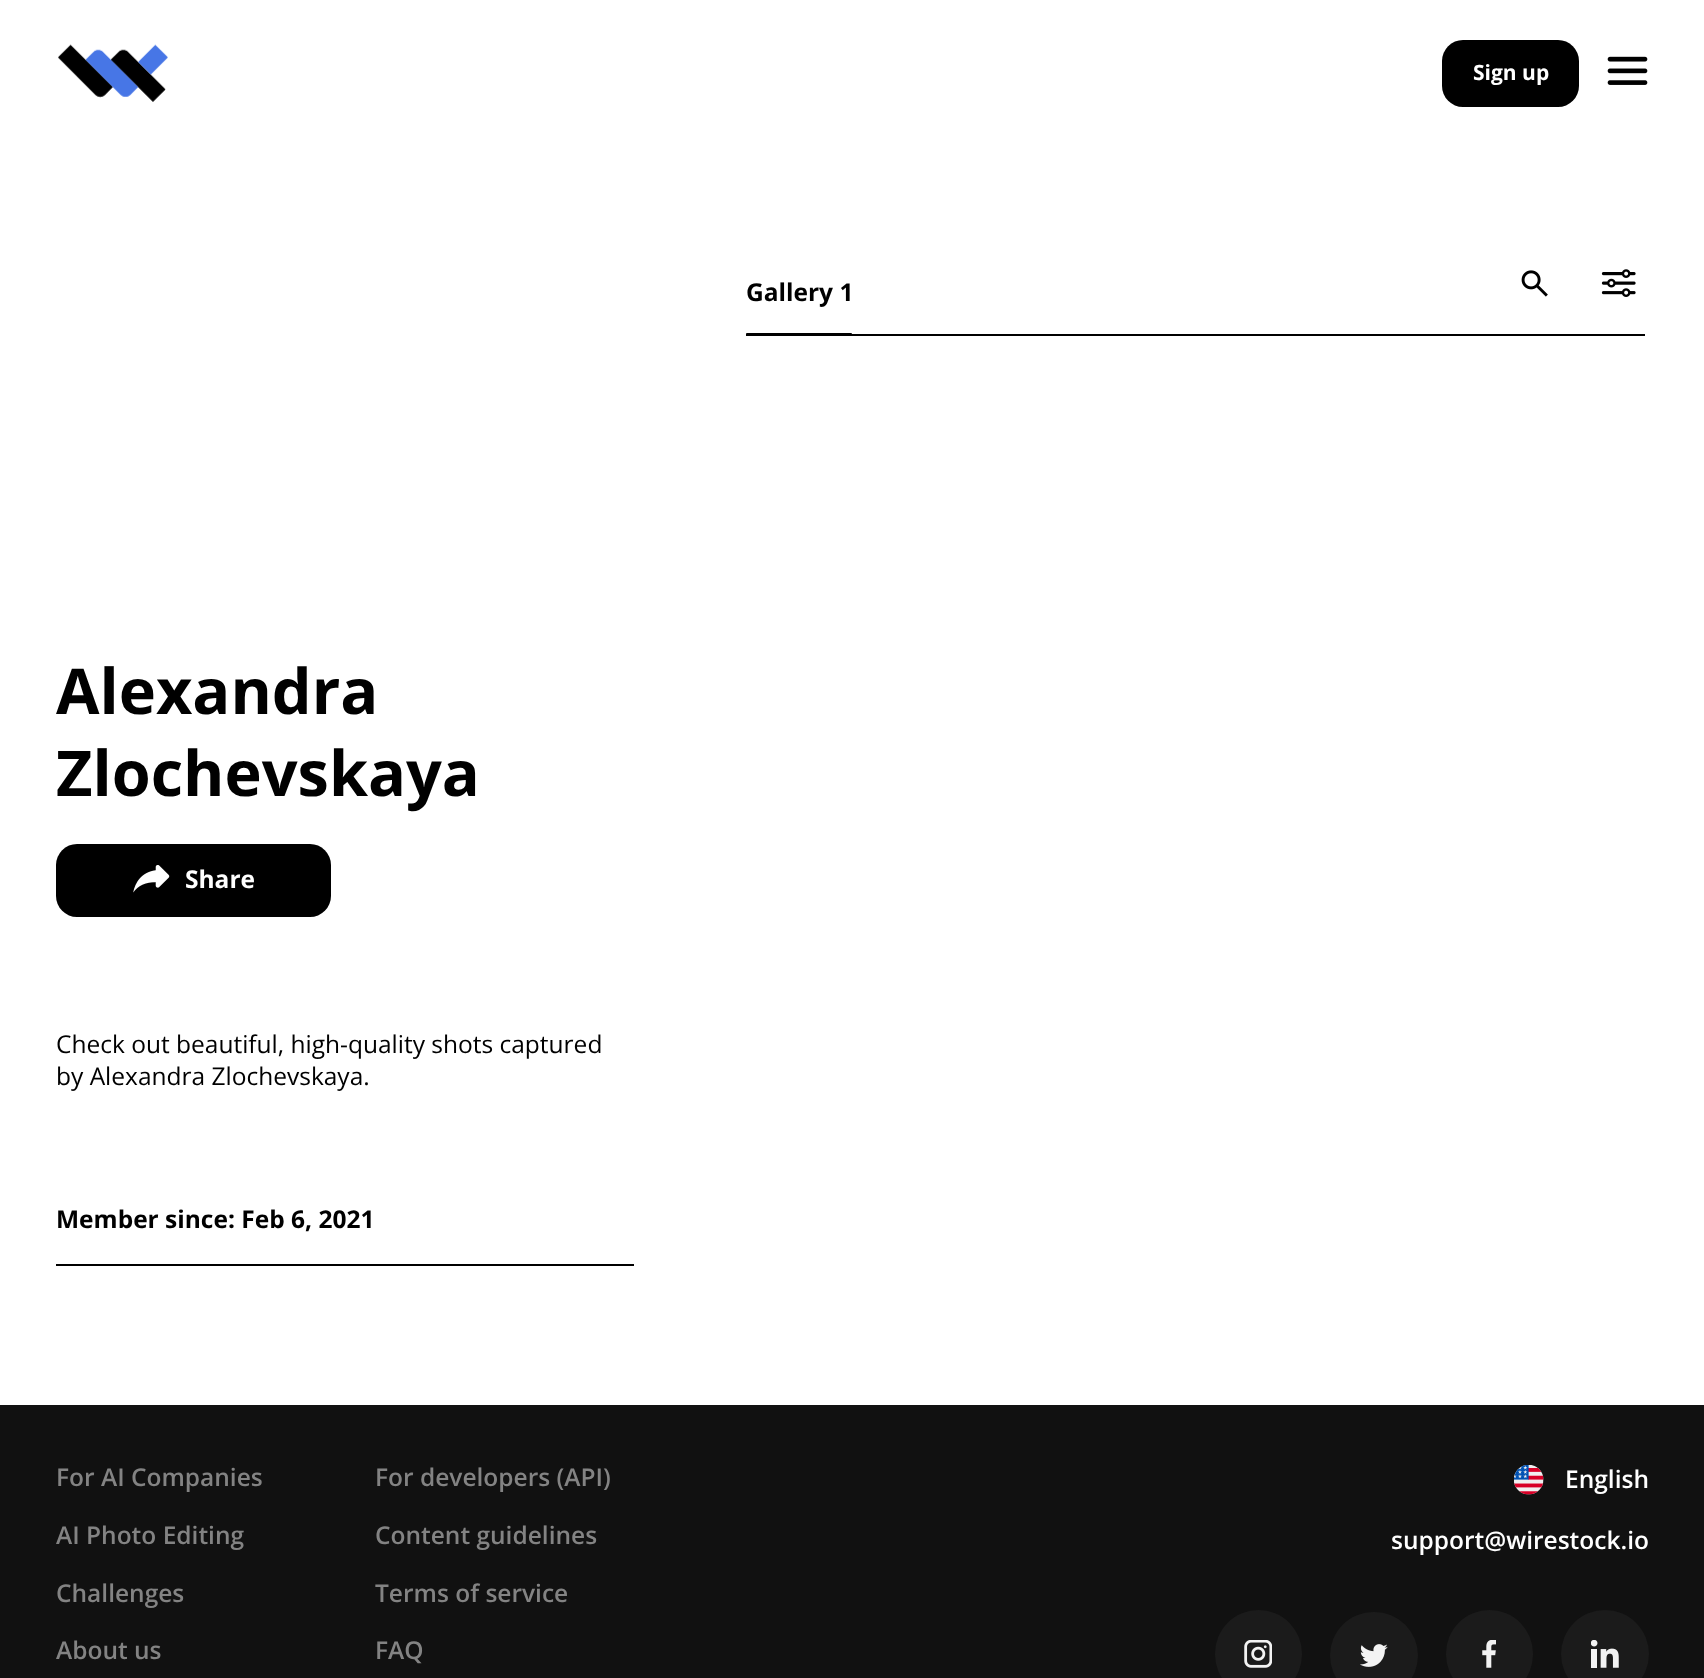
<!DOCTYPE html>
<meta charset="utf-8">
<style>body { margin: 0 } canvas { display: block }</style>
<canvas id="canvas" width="1704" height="1678"></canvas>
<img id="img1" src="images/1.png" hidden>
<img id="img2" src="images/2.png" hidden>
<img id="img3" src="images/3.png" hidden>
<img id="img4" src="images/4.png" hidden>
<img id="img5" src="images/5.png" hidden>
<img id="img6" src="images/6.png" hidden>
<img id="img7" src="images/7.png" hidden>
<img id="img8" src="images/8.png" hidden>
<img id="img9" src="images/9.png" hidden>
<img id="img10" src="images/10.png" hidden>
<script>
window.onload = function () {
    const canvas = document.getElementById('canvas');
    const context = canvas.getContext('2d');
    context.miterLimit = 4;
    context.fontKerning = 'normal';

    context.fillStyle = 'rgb(255, 255, 255)';
    context.fillRect(0, 0, 1704, 1678);
    context.drawImage(document.getElementById('img1'), 58, 44, 110, 58);
    context.fillStyle = 'rgb(0, 0, 0)';
    context.beginPath();
    context.roundRect(1442, 40, 137, 67, 21);
    context.fill();
    context.drawImage(document.getElementById('img2'), 1607, 56, 41, 29);
    context.fillRect(746, 334, 899, 2);
    context.beginPath();
    context.roundRect(746, 333, 106, 2, 1);
    context.fill();
    context.drawImage(document.getElementById('img3'), 1521, 270, 27, 27);
    context.drawImage(document.getElementById('img4'), 1601, 269, 35, 28);
    context.beginPath();
    context.roundRect(56, 844, 275, 73, 21);
    context.fill();
    context.drawImage(document.getElementById('img5'), 133, 865, 37, 28);
    context.fillRect(56, 1264, 578, 2);
    context.fillStyle = 'rgb(17, 17, 17)';
    context.fillRect(0, 1405, 1704, 273);
    context.drawImage(document.getElementById('img6'), 1514, 1465, 30, 30);
    context.fillStyle = 'rgb(27, 27, 27)';
    context.beginPath();
    context.roundRect(1215, 1610, 87, 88, 43.5);
    context.fill();
    context.drawImage(document.getElementById('img7'), 1244, 1640, 28, 28);
    context.beginPath();
    context.roundRect(1330, 1612, 88, 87, 43.5);
    context.fill();
    context.drawImage(document.getElementById('img8'), 1360, 1644, 28, 23);
    context.beginPath();
    context.roundRect(1446, 1610, 87, 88, 43.5);
    context.fill();
    context.drawImage(document.getElementById('img9'), 1482, 1640, 14, 28);
    context.beginPath();
    context.arc(1605, 1654, 44, 0, 2 * Math.PI);
    context.fill();
    context.drawImage(document.getElementById('img10'), 1591, 1640, 28, 28);
    context.font = 'bold 21px Open Sans';
    context.fillStyle = 'rgb(255, 255, 255)';
    context.fillText('Sign up', 1473, 80);
    context.font = 'bold 24.5px Open Sans';
    context.fillStyle = 'rgb(0, 0, 0)';
    context.fillText('Gallery 1', 746, 301);
    context.font = 'bold 63px Open Sans';
    context.fillText('Alexandra', 56, 714);
    context.fillText('Zlochevskaya', 56, 796);
    context.font = 'bold 24.5px Open Sans';
    context.fillStyle = 'rgb(255, 255, 255)';
    context.fillText('Share', 185, 888);
    context.font = '24.5px Open Sans';
    context.fillStyle = 'rgb(0, 0, 0)';
    context.fillText('Check out beautiful, high-quality shots captured', 56, 1053);
    context.fillText('by Alexandra Zlochevskaya.', 56, 1085);
    context.font = 'bold 24.5px Open Sans';
    context.fillText('Member since: Feb 6, 2021', 56, 1228);
    context.font = '600 24.5px Open Sans';
    context.fillStyle = 'rgb(131, 131, 131)';
    context.fillText('For AI Companies', 56, 1486);
    context.fillText('For developers (API)', 375, 1486);
    context.fillText('AI Photo Editing', 56, 1544);
    context.fillText('Content guidelines', 375, 1544);
    context.fillText('Challenges', 56, 1602);
    context.fillText('Terms of service', 375, 1602);
    context.fillText('About us', 56, 1659);
    context.fillText('FAQ', 375, 1659);
    context.fillStyle = 'rgb(255, 255, 255)';
    context.fillText('English', 1565, 1488);
    context.fillText('support@wirestock.io', 1391, 1549);
};
</script>
